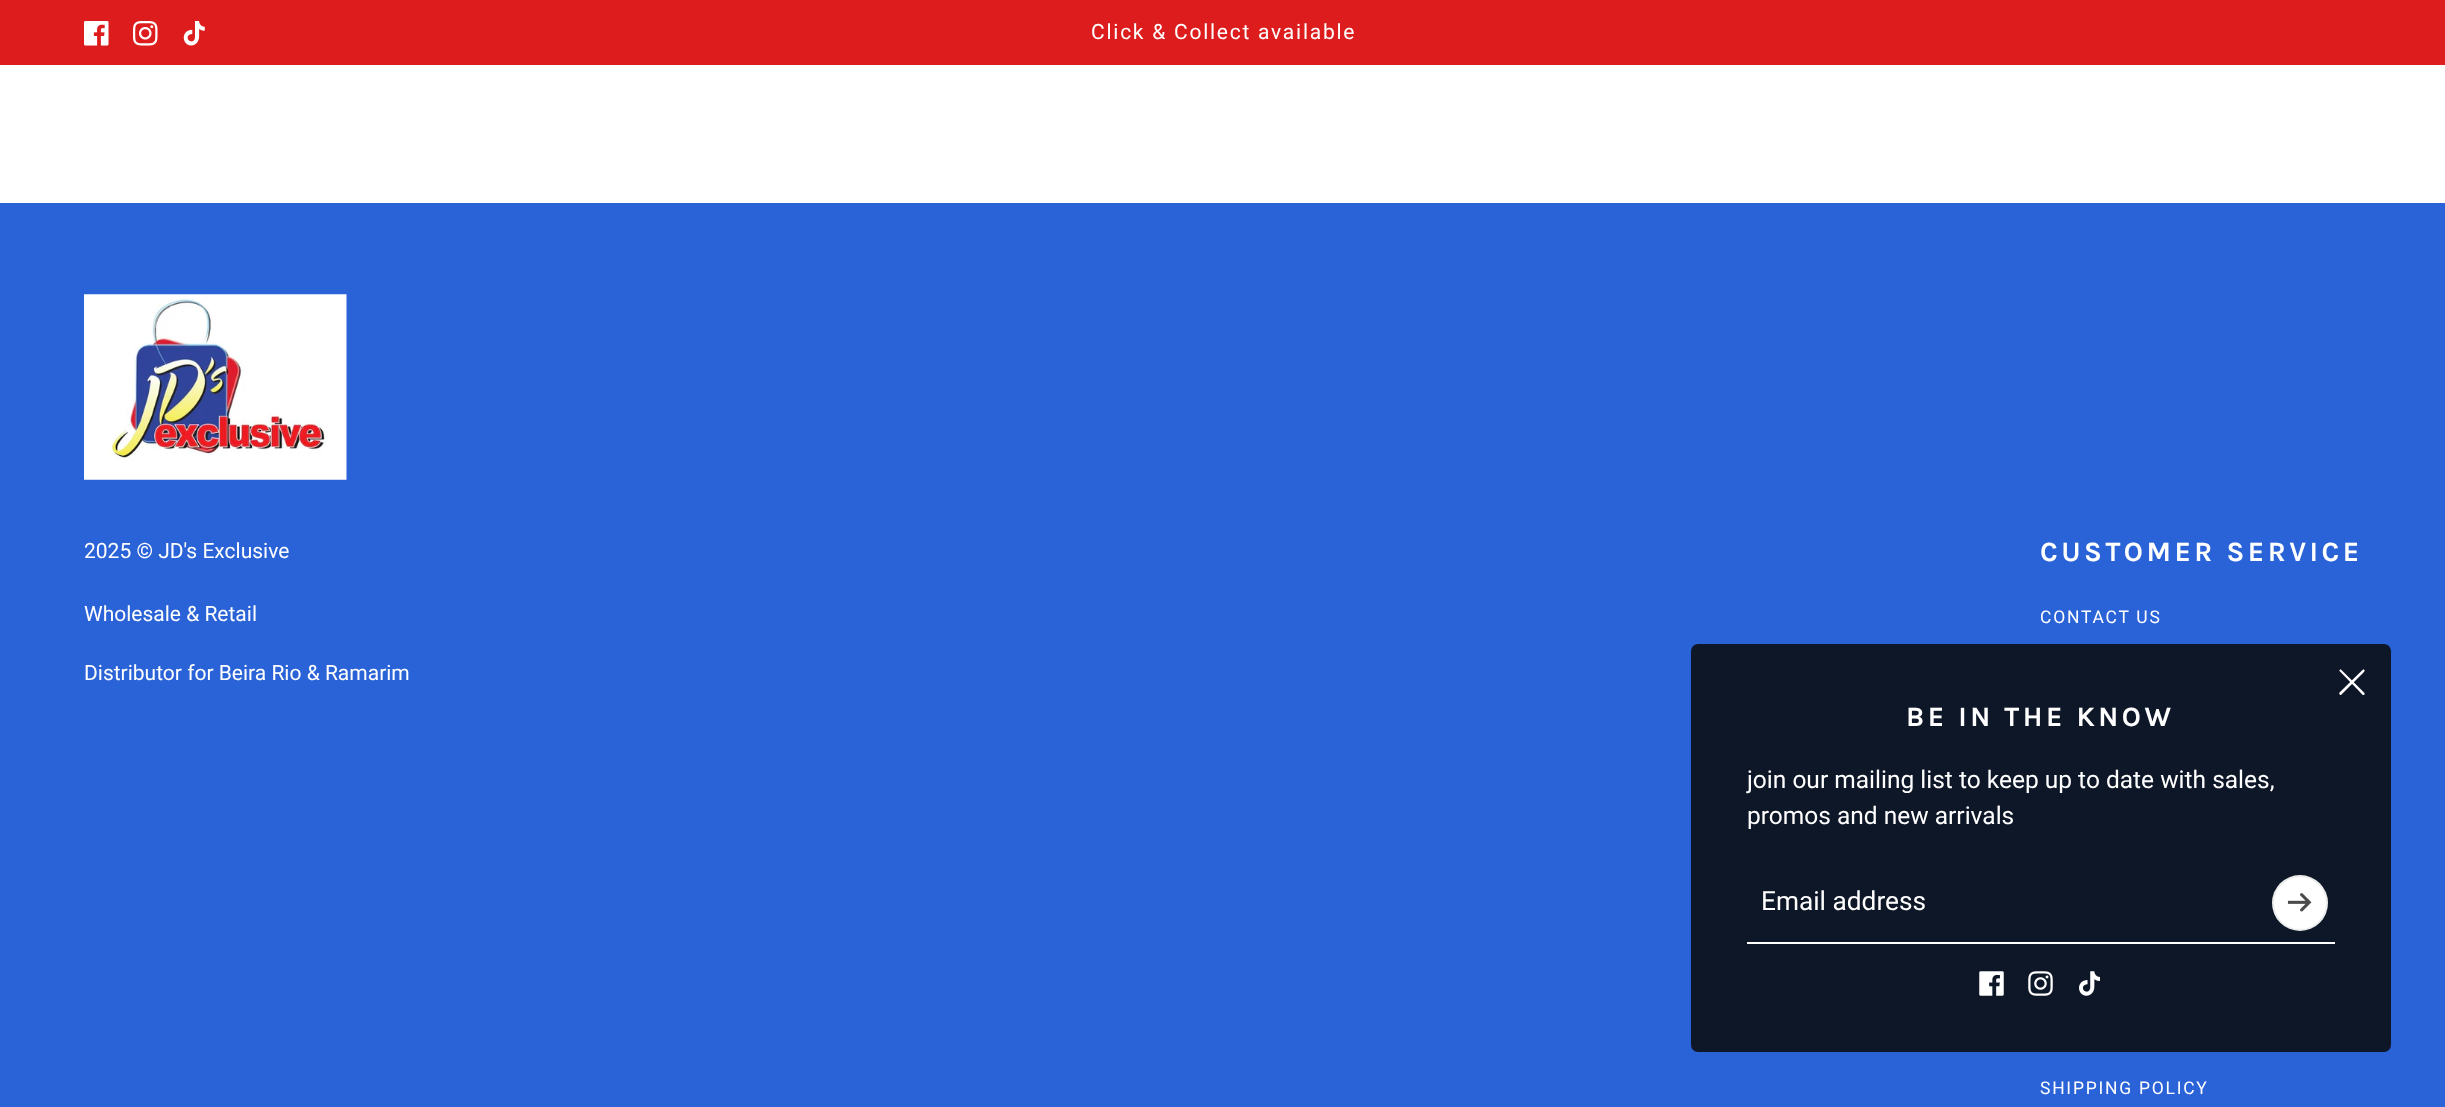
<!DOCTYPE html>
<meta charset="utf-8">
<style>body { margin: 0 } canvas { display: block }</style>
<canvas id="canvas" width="2445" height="1107"></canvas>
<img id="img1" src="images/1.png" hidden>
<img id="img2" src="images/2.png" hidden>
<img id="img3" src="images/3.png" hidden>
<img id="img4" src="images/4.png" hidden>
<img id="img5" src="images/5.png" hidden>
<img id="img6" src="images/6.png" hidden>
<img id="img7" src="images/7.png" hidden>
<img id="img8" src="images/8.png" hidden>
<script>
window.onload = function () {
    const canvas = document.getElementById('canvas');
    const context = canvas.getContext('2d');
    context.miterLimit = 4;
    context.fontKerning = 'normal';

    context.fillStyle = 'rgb(255, 255, 255)';
    context.fillRect(0, 0, 2445, 1107);
    context.fillStyle = 'rgb(221, 29, 29)';
    context.fillRect(0, 0, 2445, 65);
    context.drawImage(document.getElementById('img1'), 84, 21, 25, 25);
    context.drawImage(document.getElementById('img2'), 133, 21, 25, 25);
    context.drawImage(document.getElementById('img3'), 183, 21, 22, 25);
    context.fillStyle = 'rgb(42, 99, 215)';
    context.fillRect(0, 203, 2445, 904);
    context.drawImage(document.getElementById('img4'), 84, 294, 263, 186);
    context.fillStyle = 'rgba(9, 9, 9, 0.85)';
    context.beginPath();
    context.roundRect(1691, 644, 700, 408, 7);
    context.fill();
    context.fillStyle = 'rgb(255, 255, 255)';
    context.beginPath();
    context.moveTo(2341.5, 670);
    context.lineTo(2364.5, 693);
    context.lineTo(2364.5, 694.5);
    context.bezierCurveTo(2363, 696.5, 2361, 693, 2358.5, 690.5);
    context.lineTo(2339.5, 671);
    context.bezierCurveTo(2339, 670, 2340.5, 669, 2341.5, 670);
    context.closePath();
    context.fill();
    context.beginPath();
    context.moveTo(2339.5, 692.5);
    context.lineTo(2363, 669.5);
    context.lineTo(2364, 669.5);
    context.bezierCurveTo(2366, 671, 2362.5, 673.5, 2360.5, 675.5);
    context.lineTo(2341, 695);
    context.bezierCurveTo(2340, 695.5, 2338.5, 693.5, 2339.5, 692.5);
    context.closePath();
    context.fill();
    context.fillRect(1747, 942, 588, 2);
    context.beginPath();
    context.arc(2300, 903, 28, 0, 2 * Math.PI);
    context.fill();
    context.beginPath();
    context.arc(2300, 903, 27, 0, 2 * Math.PI);
    context.strokeStyle = 'rgba(68, 68, 68, 0.1)';
    context.lineWidth = 2;
    context.stroke();
    context.drawImage(document.getElementById('img5'), 2287, 893, 25, 19);
    context.drawImage(document.getElementById('img6'), 1979, 971, 25, 25);
    context.drawImage(document.getElementById('img7'), 2028, 971, 25, 25);
    context.drawImage(document.getElementById('img8'), 2079, 971, 21, 25);
    context.letterSpacing = '1.75px';
    context.font = '21px Roboto';
    context.fillText('Click & Collect available', 1091, 39);
    context.letterSpacing = '0px';
    context.fillText('2025 © JD\'s Exclusive', 84, 558);
    context.fillText('Wholesale & Retail', 84, 621);
    context.fillText('Distributor for Beira Rio & Ramarim', 84, 680);
    context.letterSpacing = '3.5px';
    context.font = 'bold 28px Karla';
    context.fillText('CUSTOMER SERVICE', 2040, 561);
    context.letterSpacing = '1.75px';
    context.font = '17.5px Roboto';
    context.fillText('CONTACT US', 2040, 623);
    context.fillText('SHIPPING POLICY', 2040, 1094);
    context.letterSpacing = '3.5px';
    context.font = 'bold 28px Karla';
    context.fillText('BE IN THE KNOW', 1906, 726);
    context.letterSpacing = '0px';
    context.font = '24.5px Roboto';
    context.fillText('join our mailing list to keep up to date with sales,', 1747, 788);
    context.fillText('promos and new arrivals', 1747, 824);
    context.font = '26.25px Roboto';
    context.fillText('Email address', 1761, 910);
};
</script>
